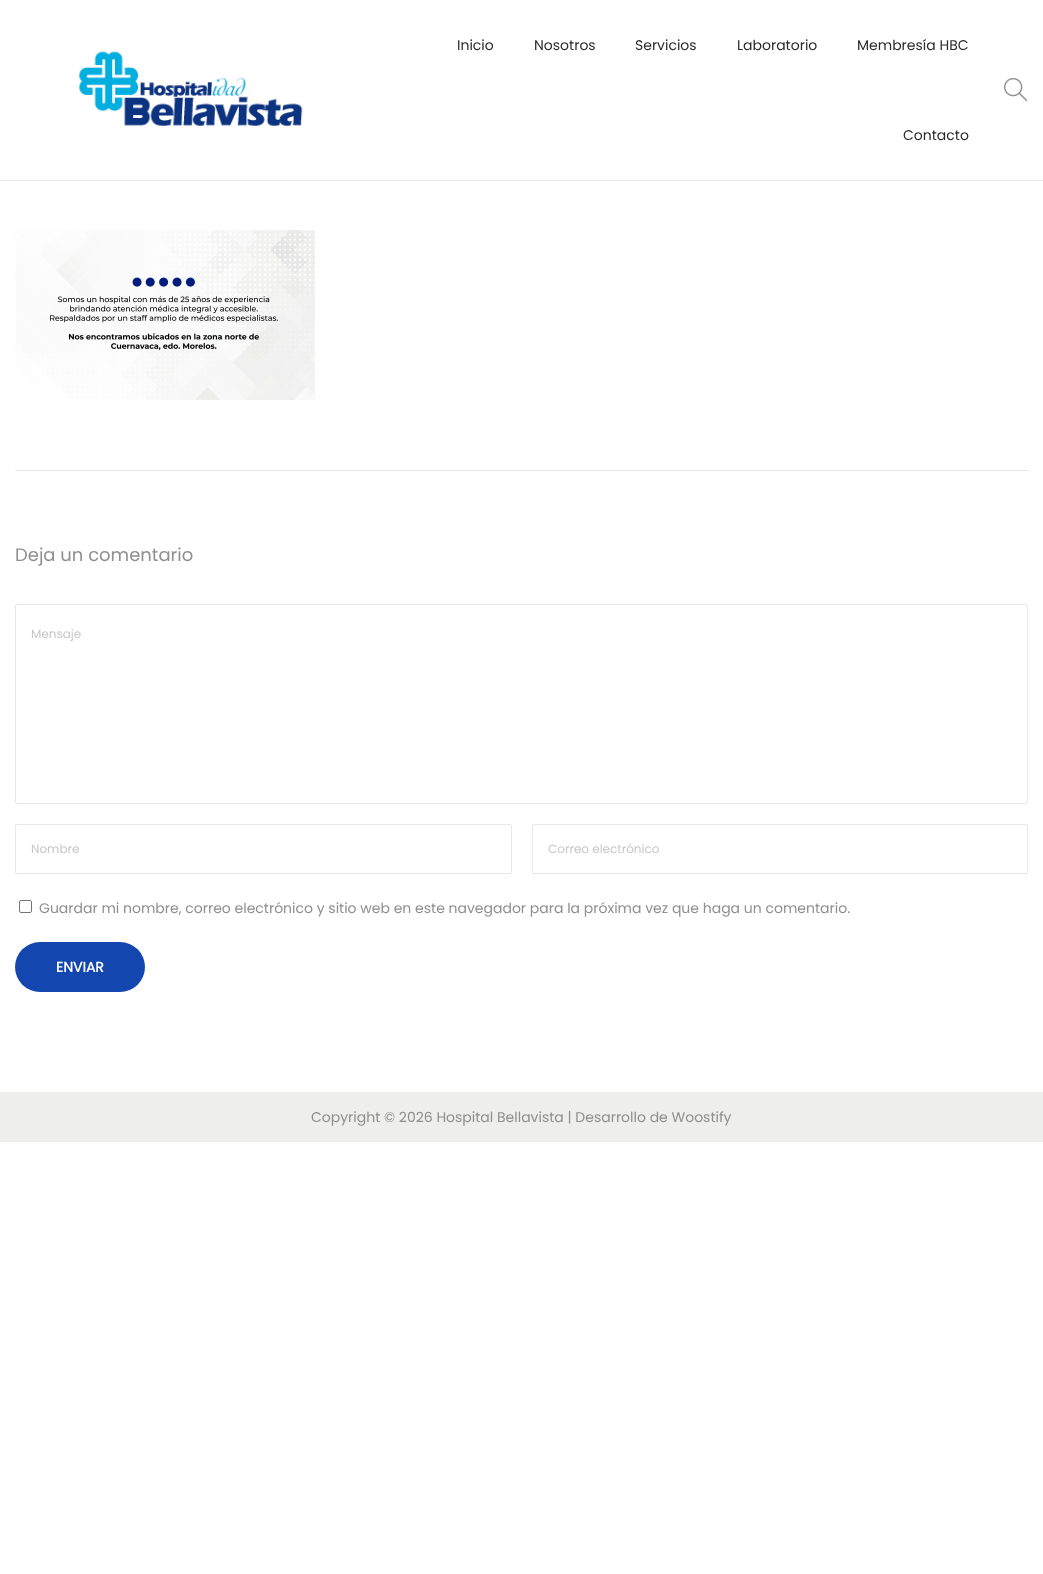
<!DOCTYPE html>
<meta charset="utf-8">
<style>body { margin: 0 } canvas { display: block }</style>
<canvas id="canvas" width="1043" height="1574"></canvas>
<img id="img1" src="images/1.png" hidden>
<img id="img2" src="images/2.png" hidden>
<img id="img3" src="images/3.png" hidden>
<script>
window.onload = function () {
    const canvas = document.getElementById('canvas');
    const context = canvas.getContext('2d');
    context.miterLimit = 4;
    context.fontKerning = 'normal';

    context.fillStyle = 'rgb(255, 255, 255)';
    context.fillRect(0, 0, 1043, 1574);
    context.fillStyle = 'rgb(234, 234, 234)';
    context.fillRect(0, 180, 1043, 1);
    context.drawImage(document.getElementById('img1'), 79, 51, 224, 75);
    context.drawImage(document.getElementById('img2'), 1004, 78, 24, 24);
    context.drawImage(document.getElementById('img3'), 15, 230, 300, 170);
    context.fillStyle = 'rgb(232, 232, 232)';
    context.fillRect(15, 470, 1013, 1);
    context.beginPath();
    context.roundRect(15.5, 604.5, 1012, 199, 1.5);
    context.strokeStyle = 'rgb(232, 232, 232)';
    context.stroke();
    context.beginPath();
    context.roundRect(15.5, 824.5, 496, 49, 1.5);
    context.stroke();
    context.beginPath();
    context.roundRect(532.5, 824.5, 495, 49, 1.5);
    context.stroke();
    context.beginPath();
    context.roundRect(19.5, 900.5, 12, 12, 1.5);
    context.strokeStyle = 'rgb(118, 118, 118)';
    context.stroke();
    context.fillStyle = 'rgb(19, 70, 175)';
    context.beginPath();
    context.roundRect(15, 942, 130, 50, 25);
    context.fill();
    context.fillStyle = 'rgb(238, 238, 236)';
    context.fillRect(0, 1092, 1043, 50);
    context.font = '14px Poppins';
    context.fillStyle = 'rgb(43, 43, 43)';
    context.fillText('Inicio', 457, 50);
    context.fillText('Nosotros', 534, 50);
    context.fillText('Servicios', 635, 50);
    context.fillText('Laboratorio', 737, 50);
    context.fillText('Membresía HBC', 857, 50);
    context.fillText('Contacto', 903, 140);
    context.font = '18px Poppins';
    context.fillStyle = 'rgb(143, 143, 143)';
    context.fillText('Deja un comentario', 15, 561);
    context.font = '12px Poppins';
    context.fillStyle = 'rgb(199, 199, 199)';
    context.fillText('Mensaje', 31, 638);
    context.fillText('Nombre', 31, 853);
    context.fillText('Correo electrónico', 548, 853);
    context.font = '14px Poppins';
    context.fillStyle = 'rgb(143, 143, 143)';
    context.fillText('Guardar mi nombre, correo electrónico y sitio web en este navegador para la próxima vez que haga un comentario.', 39, 913);
    context.font = 'bold 14px Poppins';
    context.fillStyle = 'rgb(255, 255, 255)';
    context.fillText('ENVIAR', 56, 972);
    context.font = '14px Poppins';
    context.fillStyle = 'rgb(143, 143, 143)';
    context.fillText('Copyright © 2026 Hospital Bellavista | Desarrollo de Woostify', 311, 1122);
};
</script>
